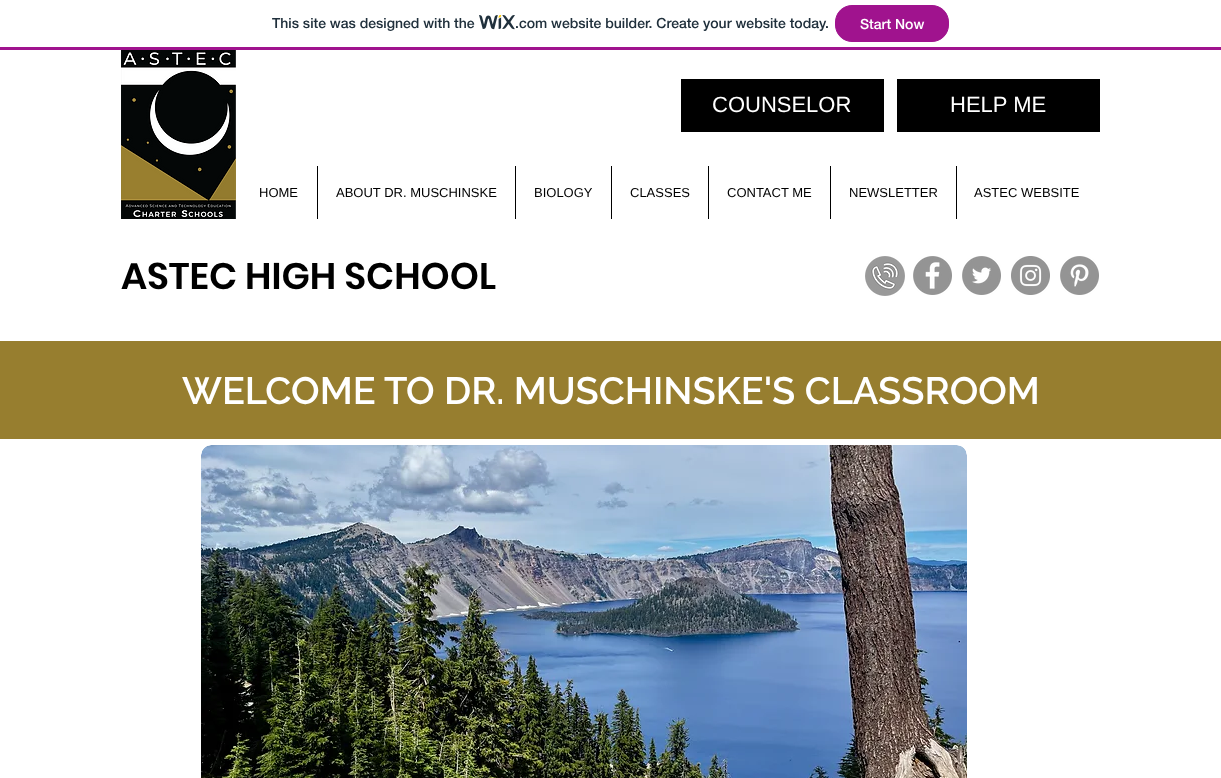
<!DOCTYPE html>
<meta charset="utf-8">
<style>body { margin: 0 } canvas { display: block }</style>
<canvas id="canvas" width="1221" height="778"></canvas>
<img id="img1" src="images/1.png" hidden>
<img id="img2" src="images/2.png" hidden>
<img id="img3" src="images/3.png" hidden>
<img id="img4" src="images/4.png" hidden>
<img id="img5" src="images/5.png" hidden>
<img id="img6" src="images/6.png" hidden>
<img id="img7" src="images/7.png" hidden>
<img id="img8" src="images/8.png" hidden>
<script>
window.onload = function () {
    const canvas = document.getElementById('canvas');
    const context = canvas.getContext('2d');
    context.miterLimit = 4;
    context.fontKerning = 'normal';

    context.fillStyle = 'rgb(255, 255, 255)';
    context.fillRect(0, 0, 1221, 778);
    context.fillStyle = 'rgb(160, 19, 142)';
    context.fillRect(0, 47, 1221, 3);
    context.drawImage(document.getElementById('img1'), 479, 15, 36, 15);
    context.beginPath();
    context.roundRect(835.5, 5.5, 113, 36, 16.5);
    context.fill();
    context.strokeStyle = 'rgb(160, 19, 142)';
    context.stroke();
    context.drawImage(document.getElementById('img2'), 121, 50, 115, 169);
    context.fillStyle = 'rgb(0, 0, 0)';
    context.fillRect(681, 79, 203, 53);
    context.fillRect(897, 79, 203, 53);
    context.fillRect(317, 166, 1, 53);
    context.fillRect(515, 166, 1, 53);
    context.fillRect(611, 166, 1, 53);
    context.fillRect(708, 166, 1, 53);
    context.fillRect(830, 166, 1, 53);
    context.fillRect(956, 166, 1, 53);
    context.drawImage(document.getElementById('img3'), 865, 256, 40, 40);
    context.drawImage(document.getElementById('img4'), 913, 256, 39, 39);
    context.drawImage(document.getElementById('img5'), 962, 256, 39, 39);
    context.drawImage(document.getElementById('img6'), 1011, 256, 39, 39);
    context.drawImage(document.getElementById('img7'), 1060, 256, 39, 39);
    context.fillStyle = 'rgb(151, 126, 47)';
    context.fillRect(0, 341, 1221, 98);
    context.drawImage(document.getElementById('img8'), 201, 445, 766, 333);
    context.font = '500 14px "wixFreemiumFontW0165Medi"';
    context.fillStyle = 'rgb(32, 48, 60)';
    context.fillText('This site was designed with the', 272, 28);
    context.fillText('.com website builder. Create your website today.', 515, 28);
    context.fillStyle = 'rgb(255, 255, 255)';
    context.fillText('Start Now', 860, 29);
    context.font = '22px Liberation Sans';
    context.fillText('COUNSELOR', 712, 112);
    context.fillText('HELP ME', 950, 112);
    context.font = '13px Liberation Sans';
    context.fillStyle = 'rgb(0, 0, 0)';
    context.fillText('HOME', 259, 197);
    context.fillText('ABOUT DR. MUSCHINSKE', 336, 197);
    context.fillText('BIOLOGY', 534, 197);
    context.fillText('CLASSES', 630, 197);
    context.fillText('CONTACT ME', 727, 197);
    context.fillText('NEWSLETTER', 849, 197);
    context.fillText('ASTEC WEBSITE', 974, 197);
    context.font = '600 37px Poppins';
    context.fillText('ASTEC HIGH SCHOOL', 121, 289);
    context.font = '600 38px Raleway';
    context.fillStyle = 'rgb(255, 255, 255)';
    context.fillText('WELCOME TO DR. MUSCHINSKE\'S CLASSROOM', 182, 404);
};
</script>
